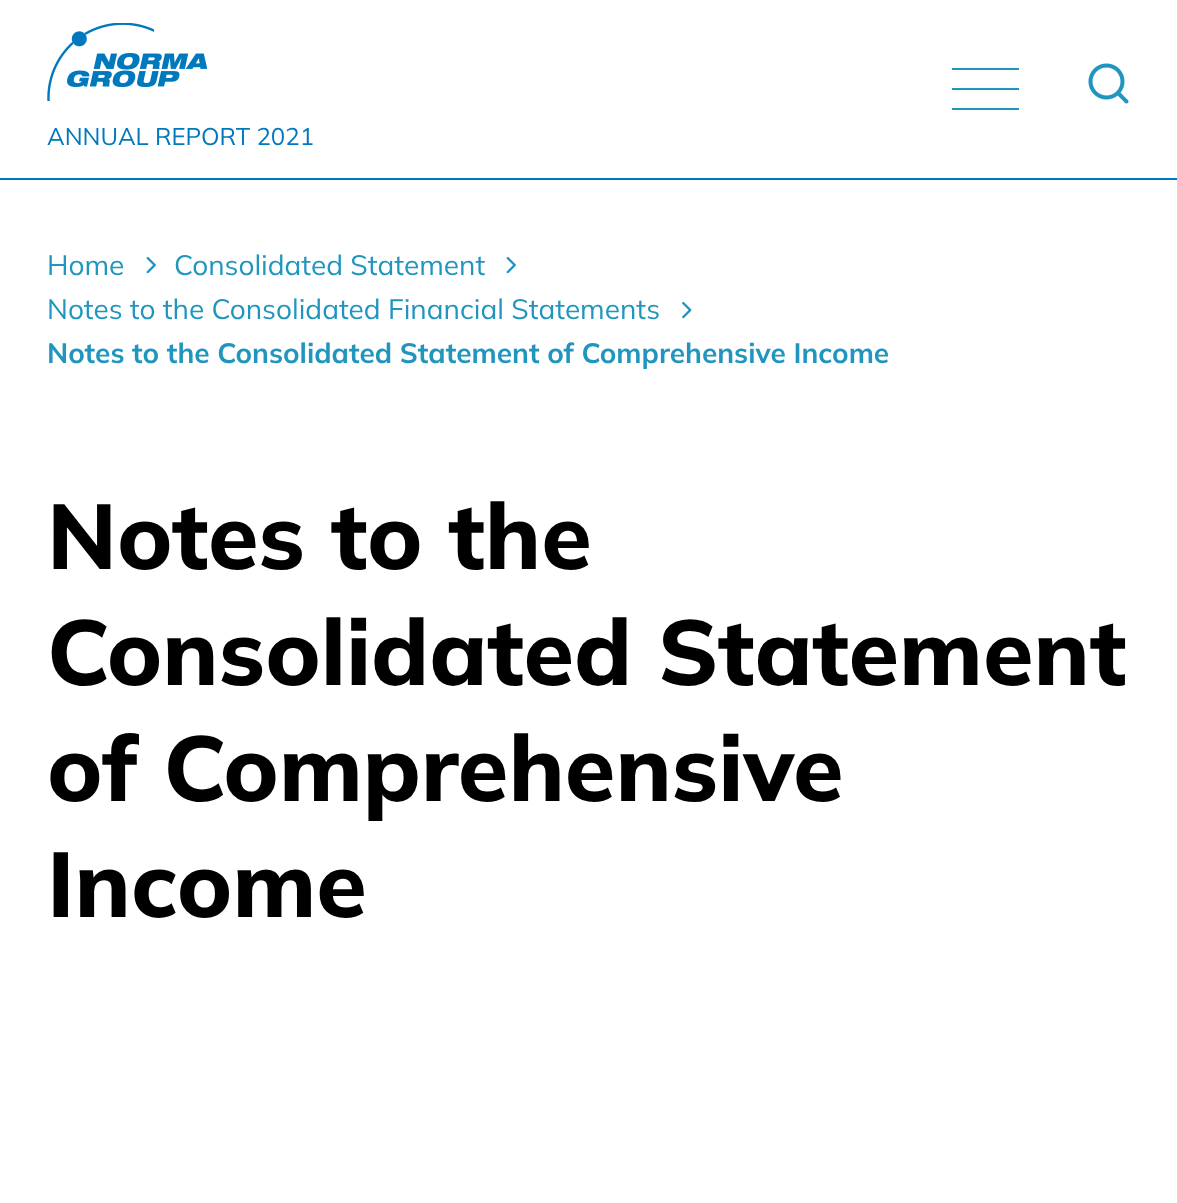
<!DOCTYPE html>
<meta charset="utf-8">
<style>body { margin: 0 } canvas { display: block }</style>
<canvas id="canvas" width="1177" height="1203"></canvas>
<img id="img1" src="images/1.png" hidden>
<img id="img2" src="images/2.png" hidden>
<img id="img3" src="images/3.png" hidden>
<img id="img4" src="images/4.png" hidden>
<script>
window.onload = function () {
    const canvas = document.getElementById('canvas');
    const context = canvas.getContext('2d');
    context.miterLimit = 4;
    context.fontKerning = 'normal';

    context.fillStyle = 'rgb(255, 255, 255)';
    context.fillRect(0, 0, 1177, 1203);
    context.fillStyle = 'rgb(0, 120, 190)';
    context.fillRect(0, 178, 1177, 2);
    context.fillStyle = 'rgb(32, 149, 190)';
    context.fillRect(952, 68, 67, 2);
    context.fillRect(952, 88, 67, 2);
    context.fillRect(952, 108, 67, 2);
    context.drawImage(document.getElementById('img1'), 1088, 63, 41, 41);
    context.drawImage(document.getElementById('img2'), 47, 23, 160, 78);
    context.drawImage(document.getElementById('img3'), 146, 256, 10, 18);
    context.drawImage(document.getElementById('img3'), 506, 256, 10, 18);
    context.drawImage(document.getElementById('img4'), 682, 301, 10, 18);
    context.font = '200 24px "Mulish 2"';
    context.fillStyle = 'rgb(0, 120, 190)';
    context.fillText('ANNUAL REPORT 2021', 47, 145);
    context.font = '200 28px "Mulish 2"';
    context.fillStyle = 'rgb(32, 149, 190)';
    context.fillText('Home', 47, 275);
    context.fillText('Consolidated Statement', 174, 275);
    context.fillText('Notes to the Consolidated Financial Statements', 47, 319);
    context.font = '200 28px "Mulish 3"';
    context.fillText('Notes to the Consolidated Statement of Comprehensive Income', 47, 363);
    context.font = '200 92px Mulish';
    context.fillStyle = 'rgb(0, 0, 0)';
    context.fillText('Notes to the', 47, 569);
    context.fillText('Consolidated Statement', 47, 685);
    context.fillText('of Comprehensive', 47, 801);
    context.fillText('Income', 47, 917);
};
</script>
